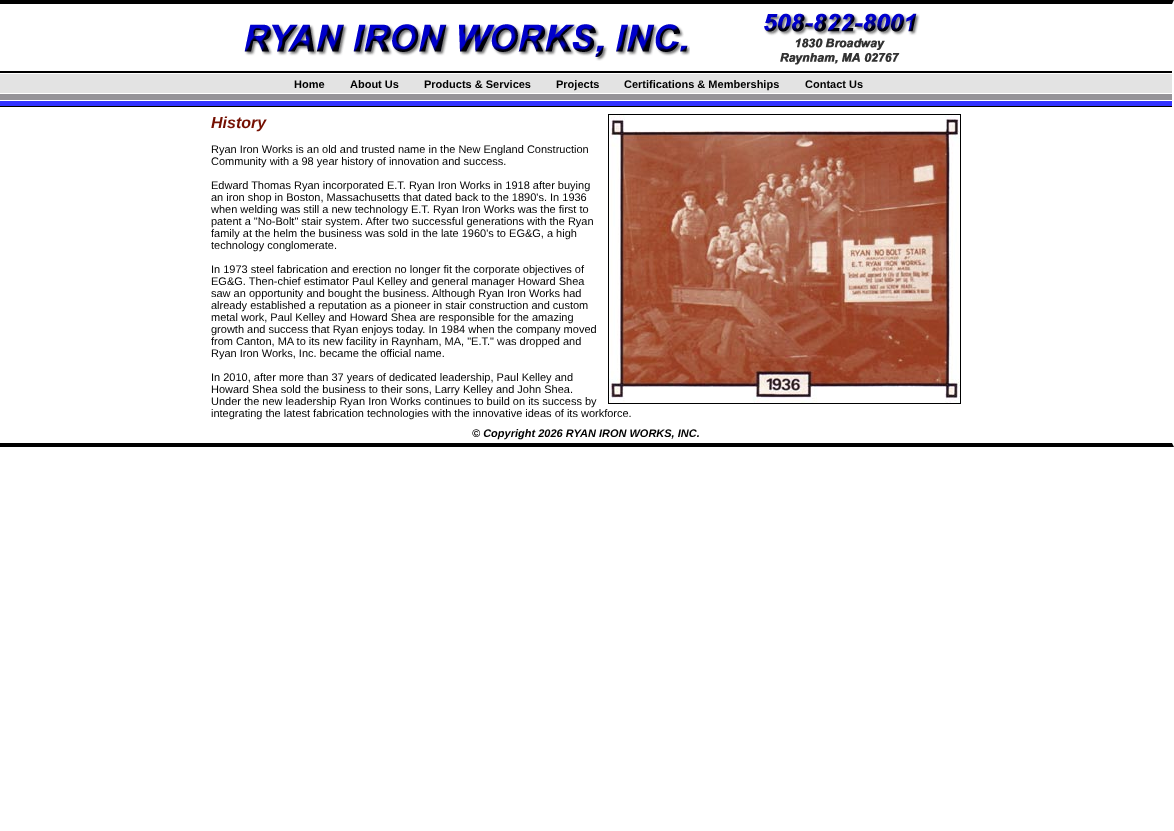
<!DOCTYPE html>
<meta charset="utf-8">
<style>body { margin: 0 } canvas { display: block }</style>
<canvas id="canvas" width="1174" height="831"></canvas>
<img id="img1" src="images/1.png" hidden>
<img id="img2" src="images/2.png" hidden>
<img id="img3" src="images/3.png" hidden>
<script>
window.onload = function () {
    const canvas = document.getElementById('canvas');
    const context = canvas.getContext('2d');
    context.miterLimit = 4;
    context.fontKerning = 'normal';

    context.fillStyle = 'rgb(255, 255, 255)';
    context.fillRect(0, 0, 1174, 831);
    context.fillStyle = 'rgb(0, 0, 0)';
    context.beginPath();
    context.moveTo(0, 0);
    context.lineTo(1174, 0);
    context.lineTo(1172, 4);
    context.lineTo(0, 4);
    context.closePath();
    context.fill();
    context.beginPath();
    context.moveTo(1174, 447);
    context.lineTo(0, 447);
    context.lineTo(0, 443);
    context.lineTo(1172, 443);
    context.closePath();
    context.fill();
    context.fillRect(0, 71, 1172, 2);
    context.drawImage(document.getElementById('img1'), 244, 24, 446, 37);
    context.drawImage(document.getElementById('img2'), 764, 13, 156, 52);
    context.fillStyle = 'rgb(227, 227, 227)';
    context.fillRect(0, 74, 1172, 19);
    context.fillStyle = 'rgb(149, 147, 152)';
    context.fillRect(0, 94, 1172, 6);
    context.fillStyle = 'rgb(51, 51, 255)';
    context.fillRect(0, 101, 1172, 5);
    context.fillStyle = 'rgb(0, 0, 0)';
    context.fillRect(0, 106, 1172, 1);
    context.strokeStyle = 'rgb(0, 0, 0)';
    context.strokeRect(608.5, 114.5, 352, 289);
    context.drawImage(document.getElementById('img3'), 609, 115, 351, 288);
    context.font = 'bold 11px Liberation Sans';
    context.fillText('Home', 294, 88);
    context.fillText('About Us', 350, 88);
    context.fillText('Products & Services', 424, 88);
    context.fillText('Projects', 556, 88);
    context.fillText('Certifications & Memberships', 624, 88);
    context.fillText('Contact Us', 805, 88);
    context.font = 'italic bold 16px Liberation Sans';
    context.fillStyle = 'rgb(117, 16, 2)';
    context.fillText('History', 211, 128);
    context.font = '11px Liberation Sans';
    context.fillStyle = 'rgb(0, 0, 0)';
    context.fillText('Ryan Iron Works is an old and trusted name in the New England Construction', 211, 153);
    context.fillText('Community with a 98 year history of innovation and success.', 211, 165);
    context.fillText('Edward Thomas Ryan incorporated E.T. Ryan Iron Works in 1918 after buying', 211, 189);
    context.fillText('an iron shop in Boston, Massachusetts that dated back to the 1890\'s. In 1936', 211, 201);
    context.fillText('when welding was still a new technology E.T. Ryan Iron Works was the first to', 211, 213);
    context.fillText('patent a "No-Bolt" stair system. After two successful generations with the Ryan', 211, 225);
    context.fillText('family at the helm the business was sold in the late 1960\'s to EG&G, a high', 211, 237);
    context.fillText('technology conglomerate.', 211, 249);
    context.fillText('In 1973 steel fabrication and erection no longer fit the corporate objectives of', 211, 273);
    context.fillText('EG&G. Then-chief estimator Paul Kelley and general manager Howard Shea', 211, 285);
    context.fillText('saw an opportunity and bought the business. Although Ryan Iron Works had', 211, 297);
    context.fillText('already established a reputation as a pioneer in stair construction and custom', 211, 309);
    context.fillText('metal work, Paul Kelley and Howard Shea are responsible for the amazing', 211, 321);
    context.fillText('growth and success that Ryan enjoys today. In 1984 when the company moved', 211, 333);
    context.fillText('from Canton, MA to its new facility in Raynham, MA, "E.T." was dropped and', 211, 345);
    context.fillText('Ryan Iron Works, Inc. became the official name.', 211, 357);
    context.fillText('In 2010, after more than 37 years of dedicated leadership, Paul Kelley and', 211, 381);
    context.fillText('Howard Shea sold the business to their sons, Larry Kelley and John Shea.', 211, 393);
    context.fillText('Under the new leadership Ryan Iron Works continues to build on its success by', 211, 405);
    context.fillText('integrating the latest fabrication technologies with the innovative ideas of its workforce.', 211, 417);
    context.font = 'italic bold 11px Liberation Sans';
    context.fillText('© Copyright 2026 RYAN IRON WORKS, INC.', 472, 437);
};
</script>
